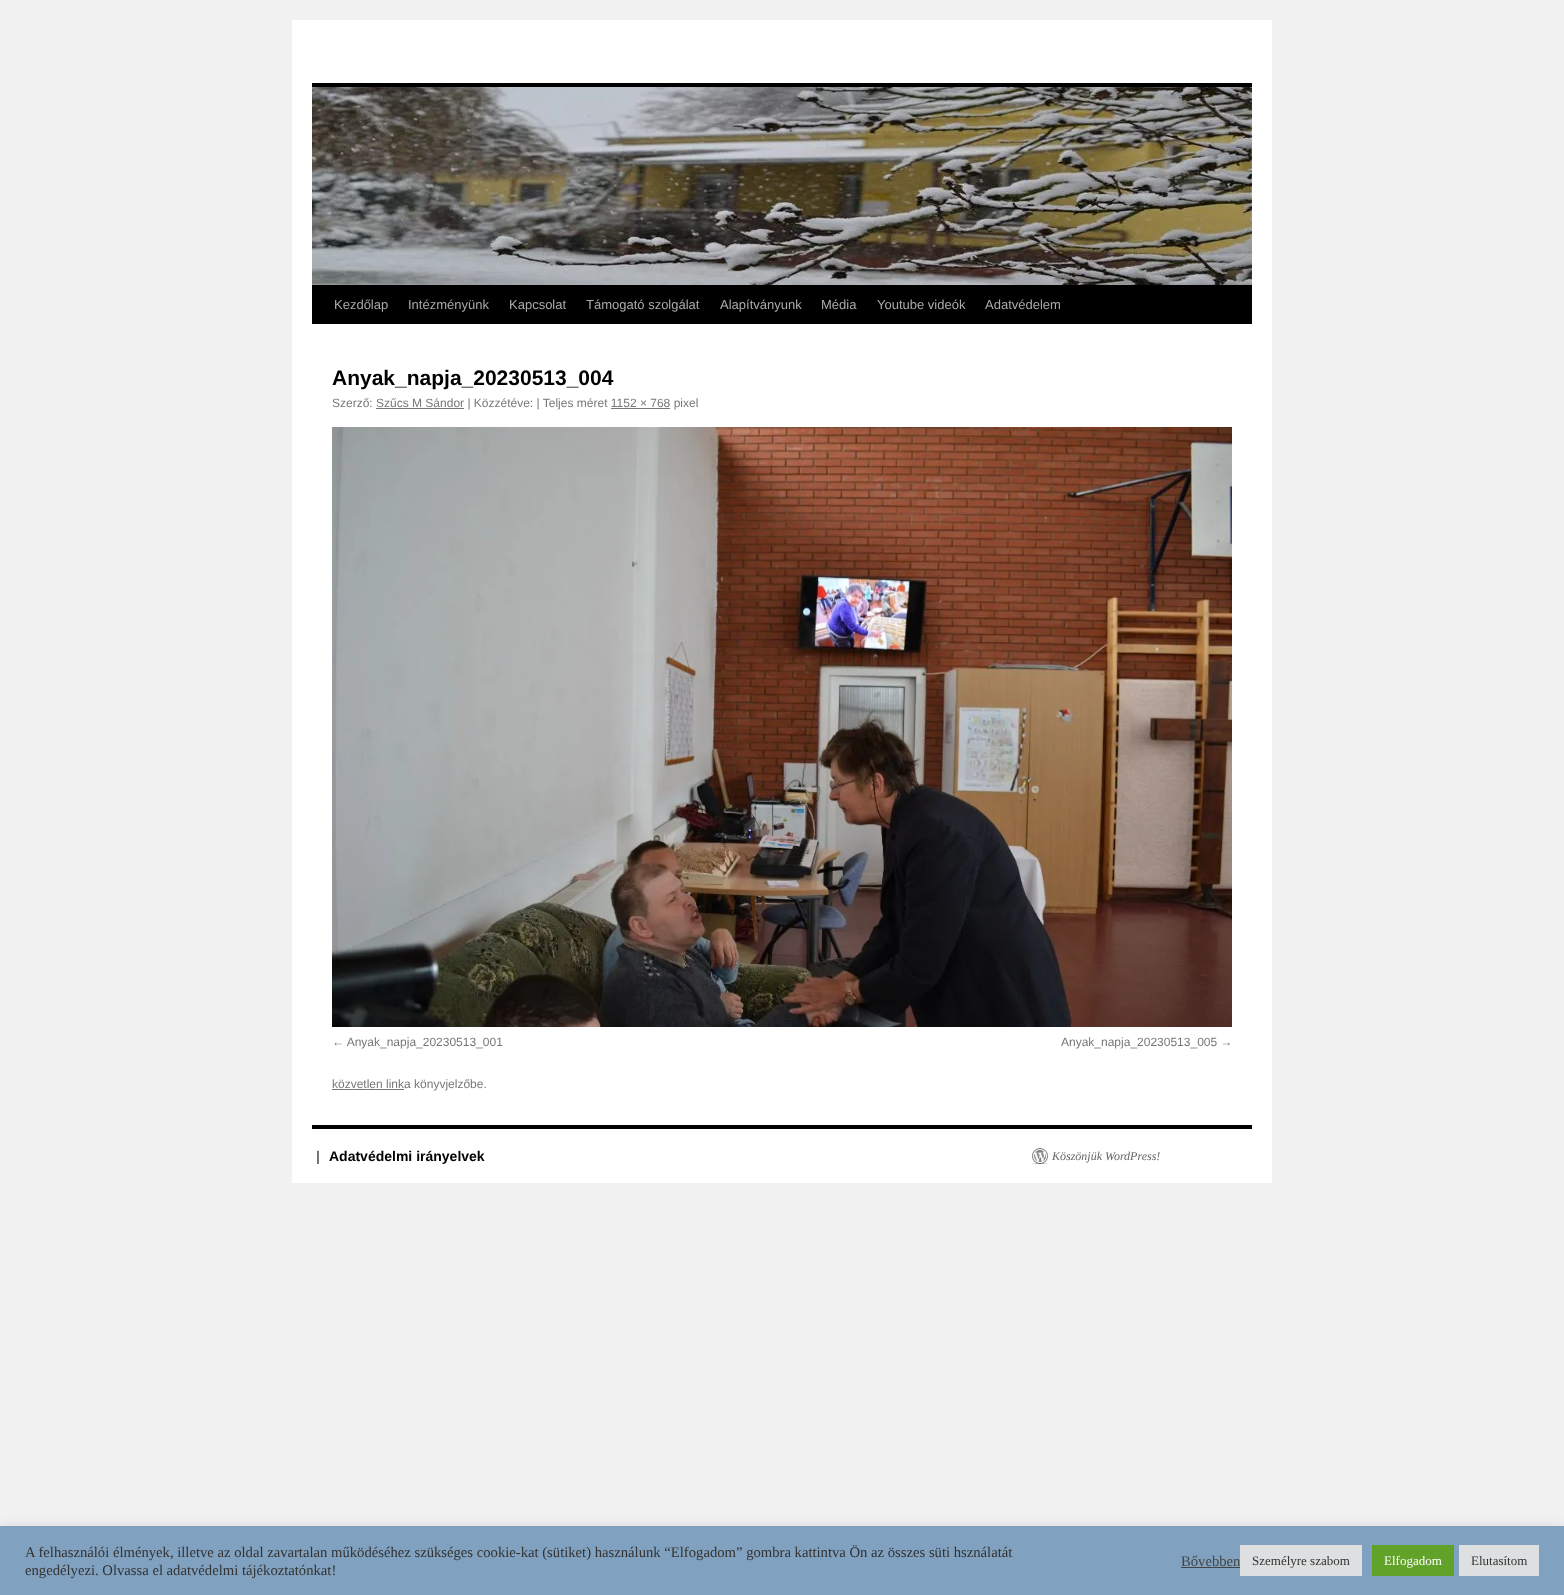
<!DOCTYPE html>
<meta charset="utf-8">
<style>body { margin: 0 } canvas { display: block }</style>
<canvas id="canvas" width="1564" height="1595"></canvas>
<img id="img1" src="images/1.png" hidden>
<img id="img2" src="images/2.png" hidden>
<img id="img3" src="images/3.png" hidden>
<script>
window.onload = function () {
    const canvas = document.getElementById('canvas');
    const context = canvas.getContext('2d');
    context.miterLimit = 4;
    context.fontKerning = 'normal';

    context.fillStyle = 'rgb(241, 241, 241)';
    context.fillRect(0, 0, 1564, 1595);
    context.fillStyle = 'rgb(255, 255, 255)';
    context.fillRect(292, 20, 980, 1163);
    context.fillStyle = 'rgb(0, 0, 0)';
    context.fillRect(312, 83, 940, 4);
    context.fillRect(312, 285, 940, 39);
    context.drawImage(document.getElementById('img1'), 312, 87, 940, 198);
    context.fillStyle = 'rgb(119, 119, 119)';
    context.fillRect(376, 408, 88, 1);
    context.fillRect(611, 408, 59, 1);
    context.drawImage(document.getElementById('img2'), 332, 427, 900, 600);
    context.fillRect(332, 1089, 72, 1);
    context.fillStyle = 'rgb(0, 0, 0)';
    context.fillRect(312, 1125, 940, 4);
    context.drawImage(document.getElementById('img3'), 1032, 1148, 16, 16);
    context.fillStyle = 'rgba(172, 171, 171, 0.3)';
    context.filter = 'blur(5px)';
    context.beginPath();
    context.rect(0, 1525, 1564, 69);
    context.fill();
    context.filter = 'none';
    context.fillStyle = 'rgb(128, 161, 191)';
    context.fillRect(0, 1526, 1564, 69);
    context.fillStyle = 'rgb(68, 68, 68)';
    context.fillRect(1181, 1567, 59, 1);
    context.fillStyle = 'rgb(222, 223, 224)';
    context.fillRect(1240, 1545, 122, 31);
    context.fillStyle = 'rgb(97, 162, 41)';
    context.fillRect(1372, 1545, 82, 31);
    context.fillStyle = 'rgb(222, 223, 224)';
    context.fillRect(1459, 1545, 80, 31);
    context.font = '13px Liberation Sans';
    context.fillStyle = 'rgb(170, 170, 170)';
    context.fillText('Kezdőlap', 334, 309);
    context.fillText('Intézményünk', 408, 309);
    context.fillText('Kapcsolat', 509, 309);
    context.fillText('Támogató szolgálat', 586, 309);
    context.fillText('Alapítványunk', 720, 309);
    context.fillText('Média', 821, 309);
    context.fillText('Youtube videók', 877, 309);
    context.fillText('Adatvédelem', 985, 309);
    context.font = 'bold 21px Liberation Sans';
    context.fillStyle = 'rgb(0, 0, 0)';
    context.fillText('Anyak_napja_20230513_004', 332, 385);
    context.font = '12px Liberation Sans';
    context.fillStyle = 'rgb(119, 119, 119)';
    context.fillText('Szerző: Szűcs M Sándor | Közzétéve: | Teljes méret 1152 × 768 pixel', 332, 407);
    context.fillText('← Anyak_napja_20230513_001', 332, 1046);
    context.fillText('Anyak_napja_20230513_005 →', 1061, 1046);
    context.fillText('közvetlen linka könyvjelzőbe.', 332, 1088);
    context.font = 'bold 14px Liberation Sans';
    context.fillStyle = 'rgb(102, 102, 102)';
    context.fillText('|', 316, 1161);
    context.fillStyle = 'rgb(0, 0, 0)';
    context.fillText('Adatvédelmi irányelvek', 329, 1161);
    context.font = 'italic 12px Liberation Serif';
    context.fillStyle = 'rgb(102, 102, 102)';
    context.fillText('Köszönjük WordPress!', 1052, 1160);
    context.font = '14.67px Liberation Serif';
    context.fillStyle = 'rgb(51, 51, 51)';
    context.fillText('A felhasználói élmények, illetve az oldal zavartalan működéséhez szükséges cookie-kat (sütiket) használunk “Elfogadom” gombra kattintva Ön az összes süti hsználatát', 25, 1557);
    context.fillText('engedélyezi. Olvassa el adatvédelmi tájékoztatónkat!', 25, 1575);
    context.fillStyle = 'rgb(68, 68, 68)';
    context.fillText('Bővebben', 1181, 1566);
    context.font = '13px Liberation Serif';
    context.fillStyle = 'rgb(51, 51, 51)';
    context.fillText('Személyre szabom', 1252, 1565);
    context.fillStyle = 'rgb(255, 255, 255)';
    context.fillText('Elfogadom', 1384, 1565);
    context.fillStyle = 'rgb(51, 51, 51)';
    context.fillText('Elutasítom', 1471, 1565);
};
</script>
